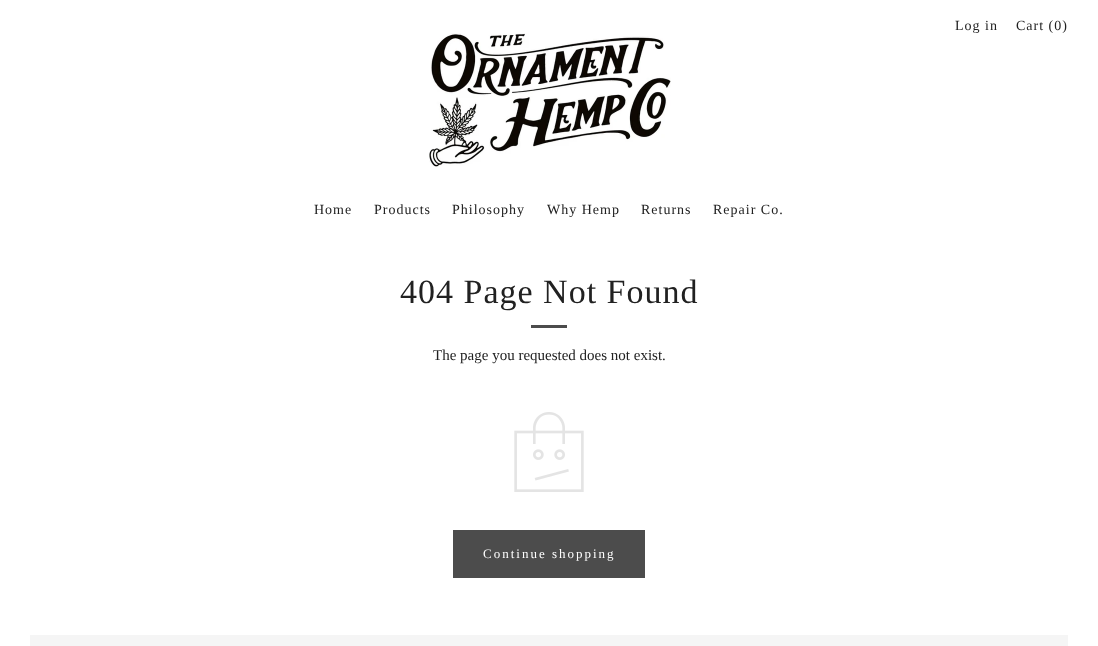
<!DOCTYPE html>
<meta charset="utf-8">
<style>body { margin: 0 } canvas { display: block }</style>
<canvas id="canvas" width="1098" height="646"></canvas>
<img id="img1" src="images/1.png" hidden>
<img id="img2" src="images/2.png" hidden>
<script>
window.onload = function () {
    const canvas = document.getElementById('canvas');
    const context = canvas.getContext('2d');
    context.miterLimit = 4;
    context.fontKerning = 'normal';

    context.fillStyle = 'rgb(255, 255, 255)';
    context.fillRect(0, 0, 1098, 646);
    context.drawImage(document.getElementById('img1'), 429, 33, 242, 134);
    context.fillStyle = 'rgb(76, 76, 76)';
    context.fillRect(531, 325, 36, 3);
    context.drawImage(document.getElementById('img2'), 514, 412, 70, 80);
    context.fillRect(453, 530, 192, 48);
    context.fillStyle = 'rgb(245, 245, 245)';
    context.fillRect(30, 635, 1038, 11);
    context.letterSpacing = '1px';
    context.font = '14px Liberation Serif';
    context.fillStyle = 'rgb(33, 33, 33)';
    context.fillText('Log in', 955, 30);
    context.fillText('Cart (0)', 1016, 30);
    context.fillText('Home', 314, 214);
    context.fillText('Products', 374, 214);
    context.fillText('Philosophy', 452, 214);
    context.fillText('Why Hemp', 547, 214);
    context.fillText('Returns', 641, 214);
    context.fillText('Repair Co.', 713, 214);
    context.font = '34px Liberation Serif';
    context.fillText('404 Page Not Found', 400, 303);
    context.letterSpacing = '0px';
    context.font = '15px Liberation Serif';
    context.fillText('The page you requested does not exist.', 433, 360);
    context.letterSpacing = '2px';
    context.font = '13px Liberation Serif';
    context.fillStyle = 'rgb(255, 255, 255)';
    context.fillText('Continue shopping', 483, 558);
};
</script>
